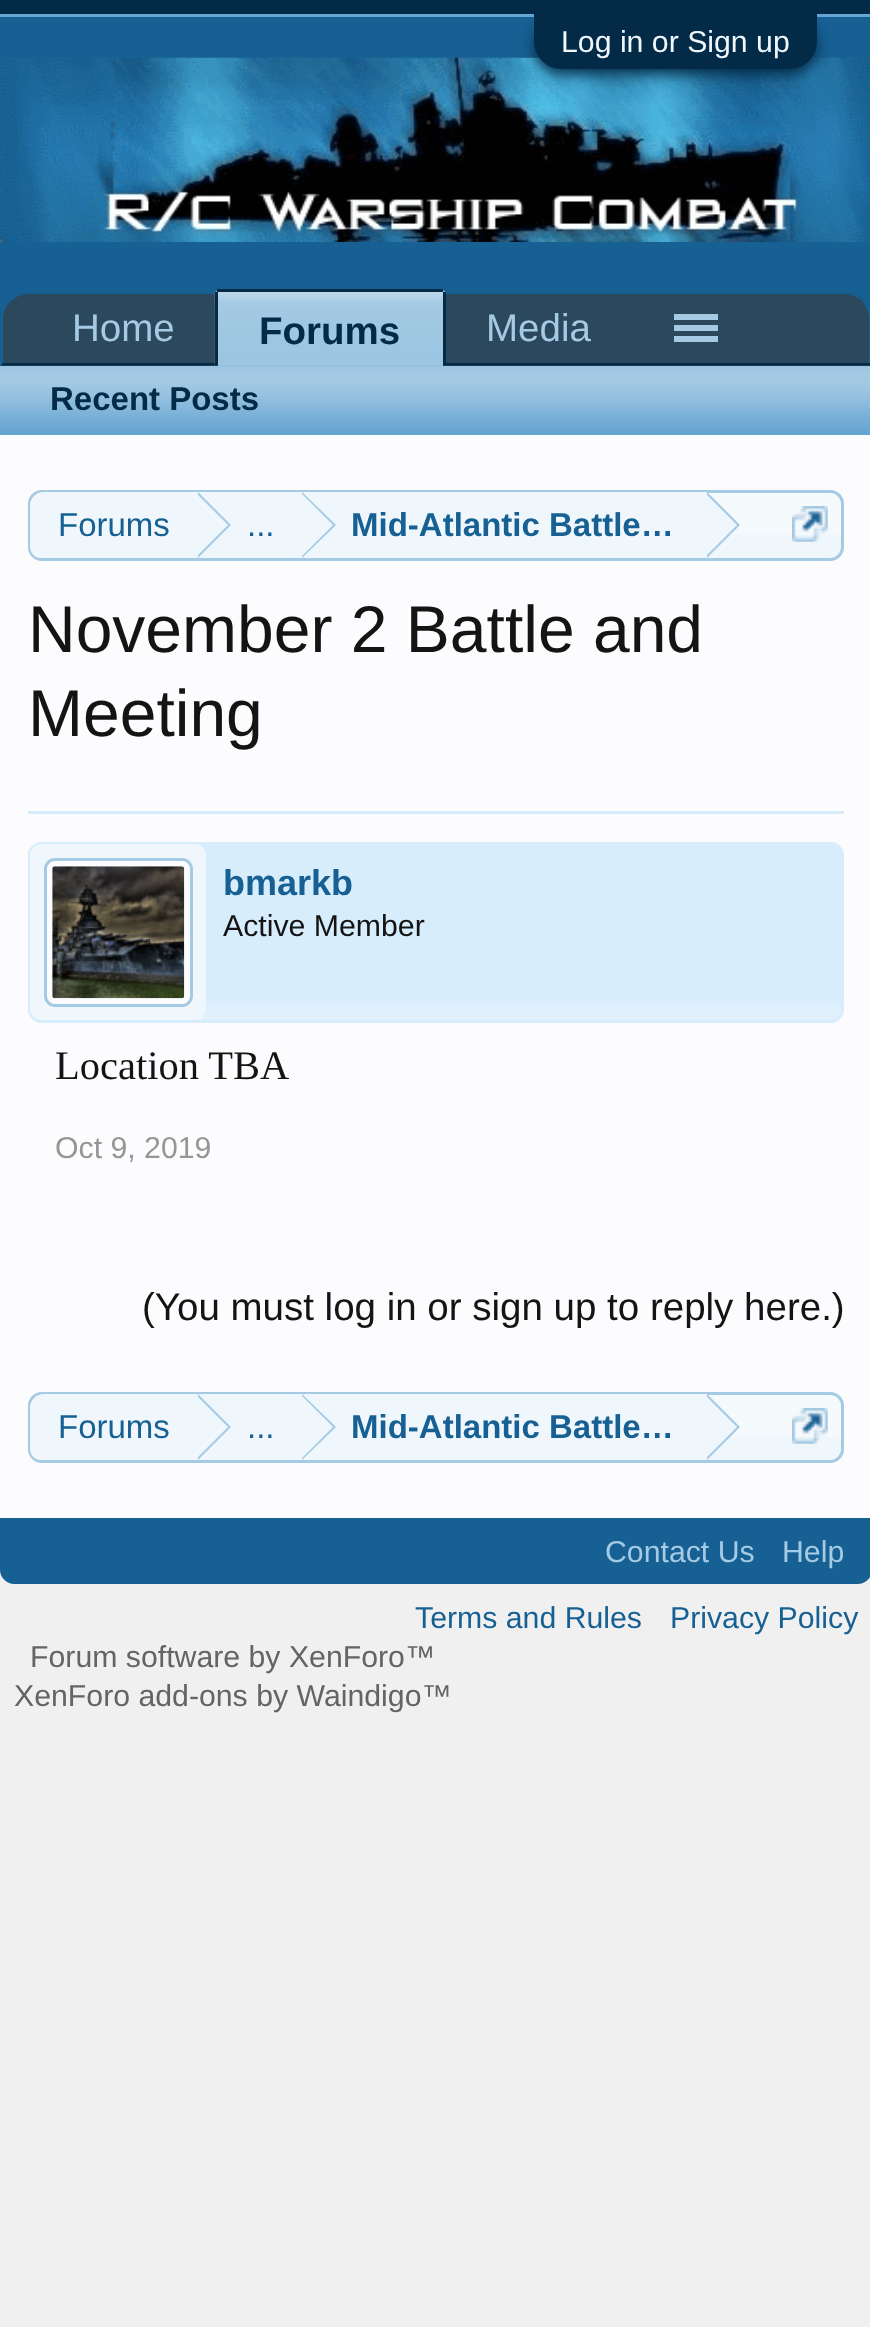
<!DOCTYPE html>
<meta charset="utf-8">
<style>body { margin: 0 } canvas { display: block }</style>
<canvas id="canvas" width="870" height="2327"></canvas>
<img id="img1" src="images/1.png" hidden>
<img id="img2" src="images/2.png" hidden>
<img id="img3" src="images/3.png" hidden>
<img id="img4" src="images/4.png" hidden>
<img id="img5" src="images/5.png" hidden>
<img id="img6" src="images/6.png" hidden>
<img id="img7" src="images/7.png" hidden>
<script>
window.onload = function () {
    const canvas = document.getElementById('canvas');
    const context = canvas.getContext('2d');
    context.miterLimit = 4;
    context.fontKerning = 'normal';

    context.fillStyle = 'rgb(240, 240, 240)';
    context.fillRect(0, 0, 870, 2327);
    context.fillStyle = 'rgb(3, 42, 70)';
    context.fillRect(0, 0, 870, 14);
    context.fillStyle = 'rgb(101, 165, 209)';
    context.fillRect(0, 14, 870, 3);
    context.fillStyle = 'rgb(23, 96, 147)';
    context.fillRect(0, 17, 870, 302);
    context.drawImage(document.getElementById('img1'), 0, 57, 870, 185);
    context.fillStyle = 'rgb(3, 42, 70)';
    context.filter = 'blur(7px)';
    context.beginPath();
    context.roundRect(534, 19, 283, 55, 27.5);
    context.fill();
    context.filter = 'none';
    context.beginPath();
    context.roundRect(534, 14, 283, 55, [0, 0, 27.5, 27.5]);
    context.fill();
    context.fillStyle = 'rgb(43, 72, 92)';
    context.beginPath();
    context.moveTo(28, 292);
    context.lineTo(844, 292);
    context.bezierCurveTo(859.5, 292, 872, 304.5, 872, 320);
    context.lineTo(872, 366);
    context.lineTo(0, 366);
    context.lineTo(0, 320);
    context.bezierCurveTo(0, 304.5, 12.5, 292, 28, 292);
    context.closePath();
    context.fill();
    context.fillStyle = 'rgb(23, 96, 147)';
    context.beginPath();
    context.moveTo(28, 292);
    context.bezierCurveTo(20, 292, 13, 295, 8, 300);
    context.lineTo(10, 302);
    context.bezierCurveTo(15, 297, 21, 294, 28, 294);
    context.lineTo(844, 294);
    context.bezierCurveTo(851, 294, 857, 297, 862, 301);
    context.lineTo(863, 300);
    context.bezierCurveTo(858, 295, 851, 292, 844, 292);
    context.closePath();
    context.fill();
    context.beginPath();
    context.moveTo(863, 300);
    context.bezierCurveTo(868, 304, 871, 309, 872, 315);
    context.lineTo(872, 366);
    context.lineTo(869, 363);
    context.lineTo(869, 319);
    context.bezierCurveTo(869, 312, 866, 306, 862, 301);
    context.closePath();
    context.fill();
    context.fillStyle = 'rgb(3, 42, 70)';
    context.beginPath();
    context.moveTo(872, 366);
    context.lineTo(869, 363);
    context.lineTo(3, 363);
    context.lineTo(0, 366);
    context.closePath();
    context.fill();
    context.fillStyle = 'rgb(23, 96, 147)';
    context.beginPath();
    context.moveTo(0, 366);
    context.lineTo(3, 363);
    context.lineTo(3, 319);
    context.bezierCurveTo(3, 312, 6, 306, 10, 302);
    context.lineTo(8, 300);
    context.bezierCurveTo(3, 305, 0, 311, 0, 319);
    context.closePath();
    context.fill();
    context.fillStyle = 'rgb(165, 202, 228)';
    context.fillRect(674, 314, 44, 6);
    context.fillRect(674, 325, 44, 6);
    context.fillRect(674, 336, 44, 6);
    context.fillStyle = 'rgb(101, 165, 209)';
    context.beginPath();
    context.roundRect(215, 289, 231, 77, [6, 6, 0, 0]);
    context.fill();
    context.drawImage(document.getElementById('img2'), 214, 291, 231, 75);
    context.fillStyle = 'rgb(3, 42, 70)';
    context.fillRect(217, 289, 226, 3);
    context.fillRect(443, 292, 3, 74);
    context.fillRect(215, 292, 3, 74);
    context.fillStyle = 'rgb(101, 165, 209)';
    context.fillRect(0, 366, 870, 69);
    context.drawImage(document.getElementById('img3'), 0, 365, 870, 66);
    context.fillStyle = 'rgb(252, 252, 255)';
    context.fillRect(0, 435, 870, 1083);
    context.fillStyle = 'rgb(240, 247, 252)';
    context.beginPath();
    context.roundRect(28, 490, 816, 71, 14);
    context.fill();
    context.drawImage(document.getElementById('img4'), 28, 493, 816, 42);
    context.beginPath();
    context.roundRect(29.5, 491.5, 813, 68, 12.5);
    context.strokeStyle = 'rgb(165, 202, 228)';
    context.lineWidth = 3;
    context.stroke();
    context.save();
    context.beginPath();
    context.roundRect(30, 492, 812, 66, 11);
    context.clip();
    context.beginPath();
    context.roundRect(30, 492, 168, 69, [14, 0, 0, 14]);
    context.fill();
    context.restore();
    context.fillRect(198, 492, 509, 43);
    context.fillStyle = 'rgb(165, 202, 228)';
    context.beginPath();
    context.moveTo(198, 558);
    context.lineTo(198, 492);
    context.lineTo(231, 525);
    context.closePath();
    context.fill();
    context.fillStyle = 'rgb(240, 247, 252)';
    context.beginPath();
    context.moveTo(195, 558);
    context.lineTo(195, 492);
    context.lineTo(228, 525);
    context.closePath();
    context.fill();
    context.fillStyle = 'rgb(165, 202, 228)';
    context.beginPath();
    context.moveTo(302, 558);
    context.lineTo(302, 492);
    context.lineTo(336, 525);
    context.closePath();
    context.fill();
    context.fillStyle = 'rgb(240, 247, 252)';
    context.beginPath();
    context.moveTo(300, 558);
    context.lineTo(300, 492);
    context.lineTo(333, 525);
    context.closePath();
    context.fill();
    context.fillStyle = 'rgb(165, 202, 228)';
    context.beginPath();
    context.moveTo(707, 558);
    context.lineTo(707, 492);
    context.lineTo(740, 525);
    context.closePath();
    context.fill();
    context.fillStyle = 'rgb(240, 247, 252)';
    context.beginPath();
    context.moveTo(704, 558);
    context.lineTo(704, 492);
    context.lineTo(737, 525);
    context.closePath();
    context.fill();
    context.drawImage(document.getElementById('img5'), 792, 506, 36, 36);
    context.fillStyle = 'rgb(215, 237, 252)';
    context.fillRect(28, 811, 816, 3);
    context.beginPath();
    context.roundRect(28, 842, 816, 181, 14);
    context.fill();
    context.drawImage(document.getElementById('img6'), 28, 1001, 816, 19);
    context.beginPath();
    context.roundRect(29.5, 843.5, 813, 178, 12.5);
    context.strokeStyle = 'rgb(215, 237, 252)';
    context.stroke();
    context.fillStyle = 'rgb(240, 247, 252)';
    context.beginPath();
    context.roundRect(30, 844, 176, 176, 11);
    context.fill();
    context.fillStyle = 'rgb(252, 252, 255)';
    context.beginPath();
    context.roundRect(45.5, 859.5, 146, 146, 9.5);
    context.fill();
    context.strokeStyle = 'rgb(165, 202, 228)';
    context.stroke();
    context.drawImage(document.getElementById('img7'), 52, 866, 133, 133);
    context.fillStyle = 'rgb(240, 247, 252)';
    context.beginPath();
    context.roundRect(28, 1392, 816, 71, 14);
    context.fill();
    context.drawImage(document.getElementById('img4'), 28, 1395, 816, 42);
    context.beginPath();
    context.roundRect(29.5, 1393.5, 813, 68, 12.5);
    context.stroke();
    context.save();
    context.beginPath();
    context.roundRect(30, 1394, 812, 66, 11);
    context.clip();
    context.beginPath();
    context.roundRect(30, 1394, 168, 69, [14, 0, 0, 14]);
    context.fill();
    context.restore();
    context.fillRect(198, 1394, 509, 43);
    context.fillStyle = 'rgb(165, 202, 228)';
    context.beginPath();
    context.moveTo(198, 1460);
    context.lineTo(198, 1394);
    context.lineTo(231, 1427);
    context.closePath();
    context.fill();
    context.fillStyle = 'rgb(240, 247, 252)';
    context.beginPath();
    context.moveTo(195, 1460);
    context.lineTo(195, 1394);
    context.lineTo(228, 1427);
    context.closePath();
    context.fill();
    context.fillStyle = 'rgb(165, 202, 228)';
    context.beginPath();
    context.moveTo(302, 1460);
    context.lineTo(302, 1394);
    context.lineTo(336, 1427);
    context.closePath();
    context.fill();
    context.fillStyle = 'rgb(240, 247, 252)';
    context.beginPath();
    context.moveTo(300, 1460);
    context.lineTo(300, 1394);
    context.lineTo(333, 1427);
    context.closePath();
    context.fill();
    context.fillStyle = 'rgb(165, 202, 228)';
    context.beginPath();
    context.moveTo(707, 1460);
    context.lineTo(707, 1394);
    context.lineTo(740, 1427);
    context.closePath();
    context.fill();
    context.fillStyle = 'rgb(240, 247, 252)';
    context.beginPath();
    context.moveTo(704, 1460);
    context.lineTo(704, 1394);
    context.lineTo(737, 1427);
    context.closePath();
    context.fill();
    context.drawImage(document.getElementById('img5'), 792, 1408, 36, 36);
    context.fillStyle = 'rgb(23, 96, 147)';
    context.beginPath();
    context.moveTo(0, 1518);
    context.lineTo(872, 1518);
    context.lineTo(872, 1570);
    context.bezierCurveTo(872, 1577.5, 865.5, 1584, 858, 1584);
    context.lineTo(14, 1584);
    context.bezierCurveTo(6.5, 1584, 0, 1577.5, 0, 1570);
    context.closePath();
    context.fill();
    context.font = '30.25px Liberation Sans';
    context.fillStyle = 'rgb(240, 247, 252)';
    context.fillText('Log in or Sign up', 561, 52);
    context.font = '38.5px Liberation Sans';
    context.fillStyle = 'rgb(165, 202, 228)';
    context.fillText('Home', 72, 341);
    context.fillText('Media', 486, 341);
    context.font = 'bold 38.5px Liberation Sans';
    context.fillStyle = 'rgb(3, 42, 70)';
    context.fillText('Forums', 259, 344);
    context.font = 'bold 33px Liberation Sans';
    context.fillText('Recent Posts', 50, 410);
    context.font = '33px Liberation Sans';
    context.fillStyle = 'rgb(23, 96, 147)';
    context.fillText('Forums', 58, 536);
    context.fillText('...', 247, 536);
    context.font = 'bold 33px Liberation Sans';
    context.fillText('Mid-Atlantic Battle…', 351, 536);
    context.font = '66px Liberation Sans';
    context.fillStyle = 'rgb(20, 20, 20)';
    context.fillText('November 2 Battle and', 28, 652);
    context.fillText('Meeting', 28, 736);
    context.font = 'bold 36px Liberation Sans';
    context.fillStyle = 'rgb(23, 96, 147)';
    context.fillText('bmarkb', 223, 895);
    context.font = '30.25px Liberation Sans';
    context.fillStyle = 'rgb(20, 20, 20)';
    context.fillText('Active Member', 223, 936);
    context.font = '40.5px Liberation Serif';
    context.fillText('Location TBA', 55, 1079);
    context.font = '30.25px Liberation Sans';
    context.fillStyle = 'rgb(150, 150, 150)';
    context.fillText('Oct 9, 2019', 55, 1158);
    context.font = '38.5px Liberation Sans';
    context.fillStyle = 'rgb(20, 20, 20)';
    context.fillText('(You must log in or sign up to reply here.)', 142, 1320);
    context.font = '33px Liberation Sans';
    context.fillStyle = 'rgb(23, 96, 147)';
    context.fillText('Forums', 58, 1438);
    context.fillText('...', 247, 1438);
    context.font = 'bold 33px Liberation Sans';
    context.fillText('Mid-Atlantic Battle…', 351, 1438);
    context.font = '30.25px Liberation Sans';
    context.fillStyle = 'rgb(165, 202, 228)';
    context.fillText('Contact Us', 605, 1562);
    context.fillText('Help', 782, 1562);
    context.fillStyle = 'rgb(23, 96, 147)';
    context.fillText('Terms and Rules', 415, 1628);
    context.fillText('Privacy Policy', 670, 1628);
    context.fillStyle = 'rgb(100, 100, 100)';
    context.fillText('Forum software by XenForo™', 30, 1667);
    context.fillText('XenForo add-ons by Waindigo™', 14, 1706);
};
</script>
